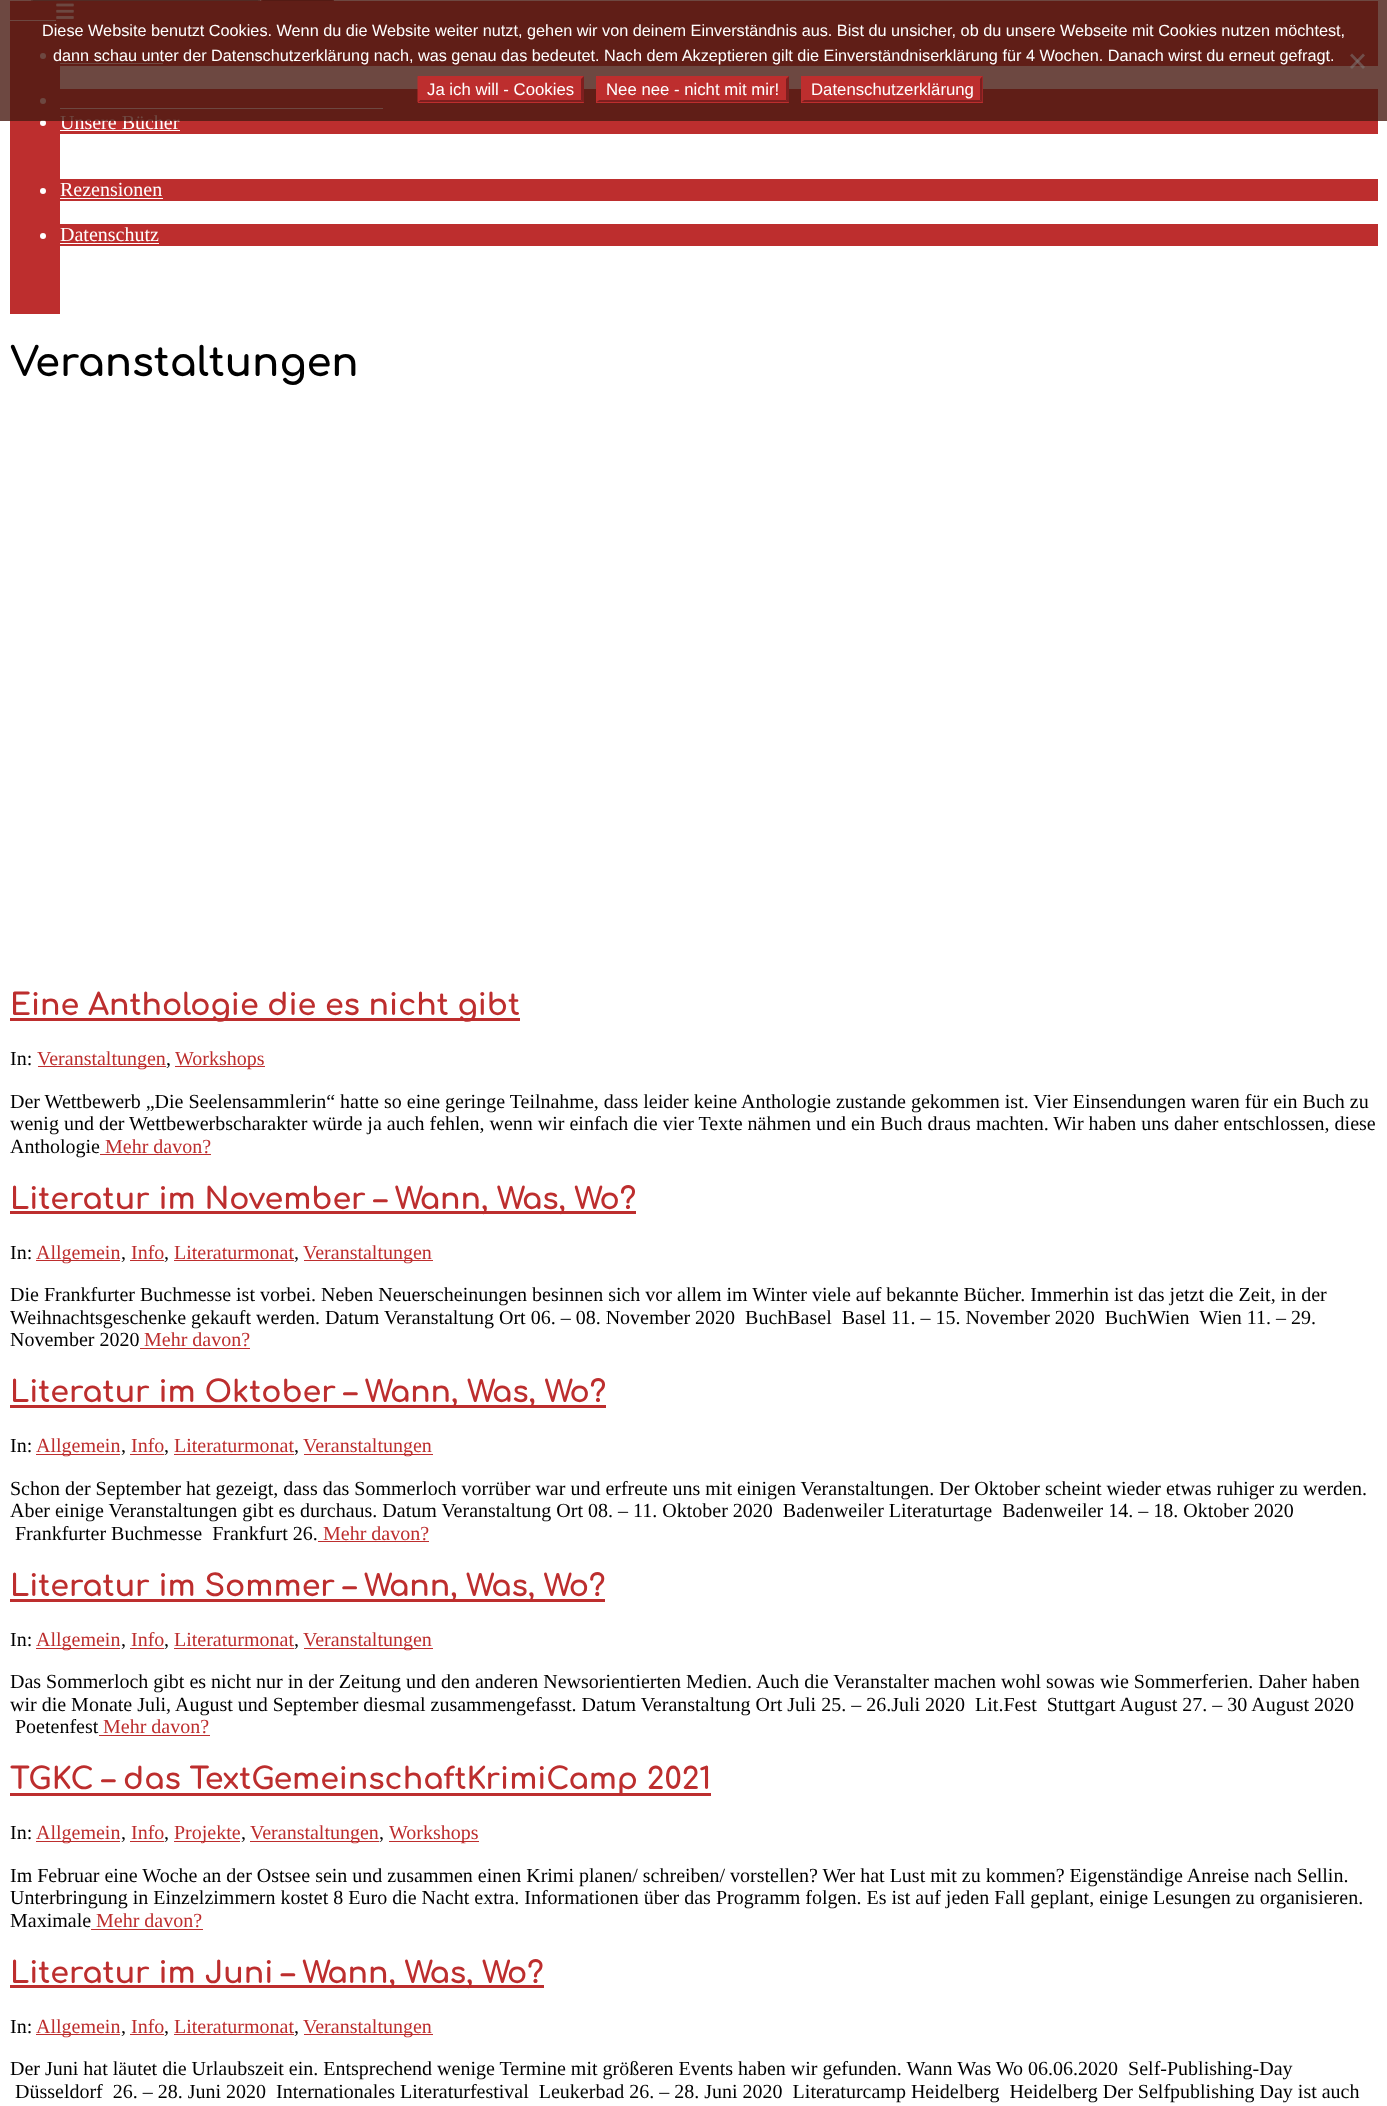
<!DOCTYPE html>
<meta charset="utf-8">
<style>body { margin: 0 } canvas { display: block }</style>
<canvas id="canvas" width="1387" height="2106"></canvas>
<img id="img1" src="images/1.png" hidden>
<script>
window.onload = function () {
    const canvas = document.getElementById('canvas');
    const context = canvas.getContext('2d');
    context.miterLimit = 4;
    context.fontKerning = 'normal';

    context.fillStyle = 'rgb(255, 255, 255)';
    context.fillRect(0, 0, 1387, 2106);
    context.beginPath();
    context.roundRect(30.5, -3.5, 230, 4, 2);
    context.strokeStyle = 'rgb(118, 118, 118)';
    context.stroke();
    context.fillStyle = 'rgb(126, 31, 31)';
    context.beginPath();
    context.moveTo(334, -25);
    context.lineTo(334, 1);
    context.lineTo(331, -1);
    context.lineTo(331, -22.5);
    context.closePath();
    context.fill();
    context.beginPath();
    context.moveTo(334, 1);
    context.lineTo(261, 1);
    context.lineTo(264, -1);
    context.lineTo(331, -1);
    context.closePath();
    context.fill();
    context.fillStyle = 'rgb(189, 46, 46)';
    context.beginPath();
    context.moveTo(261, 1);
    context.lineTo(261, -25);
    context.lineTo(264, -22.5);
    context.lineTo(264, -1);
    context.closePath();
    context.fill();
    context.fillRect(10, 1, 1368, 313);
    context.drawImage(document.getElementById('img1'), 56, 3, 18, 16);
    context.fillStyle = 'rgb(255, 255, 255)';
    context.fillRect(10, 20, 46, 1);
    context.beginPath();
    context.arc(43, 56, 3, 0, 2 * Math.PI);
    context.fill();
    context.fillRect(60, 63, 103, 1);
    context.fillRect(60, 66, 1318, 23);
    context.beginPath();
    context.arc(43, 101, 3, 0, 2 * Math.PI);
    context.fill();
    context.fillRect(60, 108, 323, 1);
    context.beginPath();
    context.arc(43, 123, 3, 0, 2 * Math.PI);
    context.fill();
    context.fillRect(60, 130, 120, 1);
    context.fillRect(60, 134, 1318, 45);
    context.beginPath();
    context.arc(43, 191, 3, 0, 2 * Math.PI);
    context.fill();
    context.fillRect(60, 198, 103, 1);
    context.fillRect(60, 201, 1318, 23);
    context.beginPath();
    context.arc(43, 236, 3, 0, 2 * Math.PI);
    context.fill();
    context.fillRect(60, 243, 99, 1);
    context.fillRect(60, 246, 1318, 68);
    context.fillStyle = 'rgb(189, 46, 46)';
    context.fillRect(10, 1018, 510, 3);
    context.fillRect(38, 1066, 128, 1);
    context.fillRect(175, 1066, 90, 1);
    context.fillRect(100, 1154, 111, 1);
    context.fillRect(10, 1211, 626, 3);
    context.fillRect(36, 1260, 84, 1);
    context.fillRect(130, 1260, 34, 1);
    context.fillRect(174, 1260, 120, 1);
    context.fillRect(304, 1260, 129, 1);
    context.fillRect(140, 1348, 110, 1);
    context.fillRect(10, 1405, 596, 3);
    context.fillRect(36, 1454, 84, 1);
    context.fillRect(130, 1454, 34, 1);
    context.fillRect(174, 1454, 120, 1);
    context.fillRect(304, 1454, 129, 1);
    context.fillRect(318, 1541, 111, 1);
    context.fillRect(10, 1599, 595, 3);
    context.fillRect(36, 1648, 84, 1);
    context.fillRect(130, 1648, 34, 1);
    context.fillRect(174, 1648, 120, 1);
    context.fillRect(304, 1648, 129, 1);
    context.fillRect(99, 1735, 111, 1);
    context.fillRect(10, 1793, 701, 3);
    context.fillRect(36, 1841, 84, 1);
    context.fillRect(130, 1841, 34, 1);
    context.fillRect(174, 1841, 66, 1);
    context.fillRect(250, 1841, 129, 1);
    context.fillRect(389, 1841, 90, 1);
    context.fillRect(91, 1929, 112, 1);
    context.fillRect(10, 1985, 534, 3);
    context.fillRect(36, 2034, 84, 1);
    context.fillRect(130, 2034, 34, 1);
    context.fillRect(174, 2034, 120, 1);
    context.fillRect(304, 2034, 129, 1);
    context.font = '20px Liberation Serif';
    context.fillStyle = 'rgb(255, 255, 255)';
    context.fillText('Unsere Bücher', 60, 129);
    context.fillStyle = 'rgba(73, 26, 17, 0.8)';
    context.fillRect(0, 0, 1387, 121);
    context.fillStyle = 'rgba(128, 128, 128, 0.5)';
    context.beginPath();
    context.moveTo(1363, 53.5);
    context.lineTo(1365, 55.5);
    context.lineTo(1352, 69);
    context.lineTo(1350, 67);
    context.closePath();
    context.fill();
    context.beginPath();
    context.moveTo(1350, 55.5);
    context.lineTo(1352, 53.5);
    context.lineTo(1365, 67);
    context.lineTo(1363, 69);
    context.closePath();
    context.fill();
    context.fillStyle = 'rgb(189, 46, 46)';
    context.fillRect(801, 76, 182, 27);
    context.font = '16.75px Liberation Sans';
    context.fillStyle = 'rgb(255, 255, 255)';
    context.fillText('Datenschutzerklärung', 811, 95);
    context.fillStyle = 'rgb(126, 31, 31)';
    context.beginPath();
    context.moveTo(982.5, 76);
    context.lineTo(982.5, 102.5);
    context.lineTo(980, 100);
    context.lineTo(980, 79);
    context.closePath();
    context.fill();
    context.beginPath();
    context.moveTo(982, 102);
    context.lineTo(801, 102);
    context.lineTo(804, 100);
    context.lineTo(980, 100);
    context.closePath();
    context.fill();
    context.fillStyle = 'rgb(189, 46, 46)';
    context.beginPath();
    context.moveTo(801, 102.5);
    context.lineTo(801, 76);
    context.lineTo(804, 79);
    context.lineTo(804, 100);
    context.closePath();
    context.fill();
    context.fillRect(596, 76, 193, 27);
    context.fillStyle = 'rgb(255, 255, 255)';
    context.fillText('Nee nee - nicht mit mir!', 606, 95);
    context.fillStyle = 'rgb(126, 31, 31)';
    context.beginPath();
    context.moveTo(789, 76);
    context.lineTo(789, 102.5);
    context.lineTo(786, 100);
    context.lineTo(786, 79);
    context.closePath();
    context.fill();
    context.beginPath();
    context.moveTo(789, 102);
    context.lineTo(596, 102);
    context.lineTo(599, 100);
    context.lineTo(786, 100);
    context.closePath();
    context.fill();
    context.fillStyle = 'rgb(189, 46, 46)';
    context.beginPath();
    context.moveTo(596, 102.5);
    context.lineTo(596, 76);
    context.lineTo(599, 79);
    context.lineTo(599, 100);
    context.closePath();
    context.fill();
    context.fillRect(418, 76, 166, 27);
    context.fillStyle = 'rgb(255, 255, 255)';
    context.fillText('Ja ich will - Cookies', 427, 95);
    context.fillStyle = 'rgb(126, 31, 31)';
    context.beginPath();
    context.moveTo(584, 76);
    context.lineTo(584, 102.5);
    context.lineTo(581, 100);
    context.lineTo(581, 79);
    context.closePath();
    context.fill();
    context.beginPath();
    context.moveTo(584, 102);
    context.lineTo(418, 102);
    context.lineTo(420, 100);
    context.lineTo(581, 100);
    context.closePath();
    context.fill();
    context.fillStyle = 'rgb(189, 46, 46)';
    context.beginPath();
    context.moveTo(417.5, 102.5);
    context.lineTo(417.5, 76);
    context.lineTo(420, 79);
    context.lineTo(420, 100);
    context.closePath();
    context.fill();
    context.font = '16.25px Liberation Sans';
    context.fillStyle = 'rgb(255, 255, 255)';
    context.fillText('dann schau unter der Datenschutzerklärung nach, was genau das bedeutet. Nach dem Akzeptieren gilt die Einverständniserklärung für 4 Wochen. Danach wirst du erneut gefragt.', 53, 61);
    context.fillText('Diese Website benutzt Cookies. Wenn du die Website weiter nutzt, gehen wir von deinem Einverständnis aus. Bist du unsicher, ob du unsere Webseite mit Cookies nutzen möchtest,', 42, 36);
    context.font = '20px Liberation Serif';
    context.fillText('Rezensionen', 60, 196);
    context.fillText('Datenschutz', 60, 241);
    context.font = 'bold 40px Comfortaa';
    context.fillStyle = 'rgb(0, 0, 0)';
    context.fillText('Veranstaltungen', 10, 376);
    context.font = 'bold 30px Comfortaa';
    context.fillStyle = 'rgb(189, 46, 46)';
    context.fillText('Eine Anthologie die es nicht gibt', 10, 1015);
    context.font = '20px Liberation Serif';
    context.fillStyle = 'rgb(0, 0, 0)';
    context.fillText('In:', 10, 1065);
    context.fillStyle = 'rgb(189, 46, 46)';
    context.fillText('Veranstaltungen', 37, 1065);
    context.fillStyle = 'rgb(0, 0, 0)';
    context.fillText(',', 166, 1065);
    context.fillStyle = 'rgb(189, 46, 46)';
    context.fillText('Workshops', 175, 1065);
    context.fillStyle = 'rgb(0, 0, 0)';
    context.fillText('Der Wettbewerb „Die Seelensammlerin“ hatte so eine geringe Teilnahme, dass leider keine Anthologie zustande gekommen ist. Vier Einsendungen waren für ein Buch zu', 10, 1108);
    context.fillText('wenig und der Wettbewerbscharakter würde ja auch fehlen, wenn wir einfach die vier Texte nähmen und ein Buch draus machten. Wir haben uns daher entschlossen, diese', 10, 1130);
    context.fillText('Anthologie', 10, 1153);
    context.fillStyle = 'rgb(189, 46, 46)';
    context.fillText('Mehr davon?', 105, 1153);
    context.font = 'bold 30px Comfortaa';
    context.fillText('Literatur im November – Wann, Was, Wo?', 10, 1209);
    context.font = '20px Liberation Serif';
    context.fillStyle = 'rgb(0, 0, 0)';
    context.fillText('In:', 10, 1259);
    context.fillStyle = 'rgb(189, 46, 46)';
    context.fillText('Allgemein', 36, 1259);
    context.fillStyle = 'rgb(0, 0, 0)';
    context.fillText(',', 121, 1259);
    context.fillStyle = 'rgb(189, 46, 46)';
    context.fillText('Info', 131, 1259);
    context.fillStyle = 'rgb(0, 0, 0)';
    context.fillText(',', 164, 1259);
    context.fillStyle = 'rgb(189, 46, 46)';
    context.fillText('Literaturmonat', 174, 1259);
    context.fillStyle = 'rgb(0, 0, 0)';
    context.fillText(',', 294, 1259);
    context.fillStyle = 'rgb(189, 46, 46)';
    context.fillText('Veranstaltungen', 303, 1259);
    context.fillStyle = 'rgb(0, 0, 0)';
    context.fillText('Die Frankfurter Buchmesse ist vorbei. Neben Neuerscheinungen besinnen sich vor allem im Winter viele auf bekannte Bücher. Immerhin ist das jetzt die Zeit, in der', 10, 1301);
    context.fillText('Weihnachtsgeschenke gekauft werden. Datum Veranstaltung Ort 06. – 08. November 2020  BuchBasel  Basel 11. – 15. November 2020  BuchWien  Wien 11. – 29.', 10, 1324);
    context.fillText('November 2020', 10, 1346);
    context.fillStyle = 'rgb(189, 46, 46)';
    context.fillText('Mehr davon?', 144, 1346);
    context.font = 'bold 30px Comfortaa';
    context.fillText('Literatur im Oktober – Wann, Was, Wo?', 10, 1402);
    context.font = '20px Liberation Serif';
    context.fillStyle = 'rgb(0, 0, 0)';
    context.fillText('In:', 10, 1452);
    context.fillStyle = 'rgb(189, 46, 46)';
    context.fillText('Allgemein', 36, 1452);
    context.fillStyle = 'rgb(0, 0, 0)';
    context.fillText(',', 121, 1452);
    context.fillStyle = 'rgb(189, 46, 46)';
    context.fillText('Info', 131, 1452);
    context.fillStyle = 'rgb(0, 0, 0)';
    context.fillText(',', 164, 1452);
    context.fillStyle = 'rgb(189, 46, 46)';
    context.fillText('Literaturmonat', 174, 1452);
    context.fillStyle = 'rgb(0, 0, 0)';
    context.fillText(',', 294, 1452);
    context.fillStyle = 'rgb(189, 46, 46)';
    context.fillText('Veranstaltungen', 303, 1452);
    context.fillStyle = 'rgb(0, 0, 0)';
    context.fillText('Schon der September hat gezeigt, dass das Sommerloch vorrüber war und erfreute uns mit einigen Veranstaltungen. Der Oktober scheint wieder etwas ruhiger zu werden.', 10, 1495);
    context.fillText('Aber einige Veranstaltungen gibt es durchaus. Datum Veranstaltung Ort 08. – 11. Oktober 2020  Badenweiler Literaturtage  Badenweiler 14. – 18. Oktober 2020', 10, 1517);
    context.fillText('Frankfurter Buchmesse  Frankfurt 26.', 15, 1540);
    context.fillStyle = 'rgb(189, 46, 46)';
    context.fillText('Mehr davon?', 323, 1540);
    context.font = 'bold 30px Comfortaa';
    context.fillText('Literatur im Sommer – Wann, Was, Wo?', 10, 1596);
    context.font = '20px Liberation Serif';
    context.fillStyle = 'rgb(0, 0, 0)';
    context.fillText('In:', 10, 1646);
    context.fillStyle = 'rgb(189, 46, 46)';
    context.fillText('Allgemein', 36, 1646);
    context.fillStyle = 'rgb(0, 0, 0)';
    context.fillText(',', 121, 1646);
    context.fillStyle = 'rgb(189, 46, 46)';
    context.fillText('Info', 131, 1646);
    context.fillStyle = 'rgb(0, 0, 0)';
    context.fillText(',', 164, 1646);
    context.fillStyle = 'rgb(189, 46, 46)';
    context.fillText('Literaturmonat', 174, 1646);
    context.fillStyle = 'rgb(0, 0, 0)';
    context.fillText(',', 294, 1646);
    context.fillStyle = 'rgb(189, 46, 46)';
    context.fillText('Veranstaltungen', 303, 1646);
    context.fillStyle = 'rgb(0, 0, 0)';
    context.fillText('Das Sommerloch gibt es nicht nur in der Zeitung und den anderen Newsorientierten Medien. Auch die Veranstalter machen wohl sowas wie Sommerferien. Daher haben', 10, 1688);
    context.fillText('wir die Monate Juli, August und September diesmal zusammengefasst. Datum Veranstaltung Ort Juli 25. – 26.Juli 2020  Lit.Fest  Stuttgart August 27. – 30 August 2020', 10, 1711);
    context.fillText('Poetenfest', 15, 1733);
    context.fillStyle = 'rgb(189, 46, 46)';
    context.fillText('Mehr davon?', 103, 1733);
    context.font = 'bold 30px Comfortaa';
    context.fillText('TGKC – das TextGemeinschaftKrimiCamp 2021', 10, 1789);
    context.font = '20px Liberation Serif';
    context.fillStyle = 'rgb(0, 0, 0)';
    context.fillText('In:', 10, 1839);
    context.fillStyle = 'rgb(189, 46, 46)';
    context.fillText('Allgemein', 36, 1839);
    context.fillStyle = 'rgb(0, 0, 0)';
    context.fillText(',', 121, 1839);
    context.fillStyle = 'rgb(189, 46, 46)';
    context.fillText('Info', 131, 1839);
    context.fillStyle = 'rgb(0, 0, 0)';
    context.fillText(',', 164, 1839);
    context.fillStyle = 'rgb(189, 46, 46)';
    context.fillText('Projekte', 174, 1839);
    context.fillStyle = 'rgb(0, 0, 0)';
    context.fillText(',', 241, 1839);
    context.fillStyle = 'rgb(189, 46, 46)';
    context.fillText('Veranstaltungen', 250, 1839);
    context.fillStyle = 'rgb(0, 0, 0)';
    context.fillText(',', 379, 1839);
    context.fillStyle = 'rgb(189, 46, 46)';
    context.fillText('Workshops', 389, 1839);
    context.fillStyle = 'rgb(0, 0, 0)';
    context.fillText('Im Februar eine Woche an der Ostsee sein und zusammen einen Krimi planen/ schreiben/ vorstellen? Wer hat Lust mit zu kommen? Eigenständige Anreise nach Sellin.', 10, 1882);
    context.fillText('Unterbringung in Einzelzimmern kostet 8 Euro die Nacht extra. Informationen über das Programm folgen. Es ist auf jeden Fall geplant, einige Lesungen zu organisieren.', 10, 1904);
    context.fillText('Maximale', 10, 1927);
    context.fillStyle = 'rgb(189, 46, 46)';
    context.fillText('Mehr davon?', 96, 1927);
    context.font = 'bold 30px Comfortaa';
    context.fillText('Literatur im Juni – Wann, Was, Wo?', 10, 1983);
    context.font = '20px Liberation Serif';
    context.fillStyle = 'rgb(0, 0, 0)';
    context.fillText('In:', 10, 2033);
    context.fillStyle = 'rgb(189, 46, 46)';
    context.fillText('Allgemein', 36, 2033);
    context.fillStyle = 'rgb(0, 0, 0)';
    context.fillText(',', 121, 2033);
    context.fillStyle = 'rgb(189, 46, 46)';
    context.fillText('Info', 131, 2033);
    context.fillStyle = 'rgb(0, 0, 0)';
    context.fillText(',', 164, 2033);
    context.fillStyle = 'rgb(189, 46, 46)';
    context.fillText('Literaturmonat', 174, 2033);
    context.fillStyle = 'rgb(0, 0, 0)';
    context.fillText(',', 294, 2033);
    context.fillStyle = 'rgb(189, 46, 46)';
    context.fillText('Veranstaltungen', 303, 2033);
    context.fillStyle = 'rgb(0, 0, 0)';
    context.fillText('Der Juni hat läutet die Urlaubszeit ein. Entsprechend wenige Termine mit größeren Events haben wir gefunden. Wann Was Wo 06.06.2020  Self-Publishing-Day', 10, 2075);
    context.fillText('Düsseldorf  26. – 28. Juni 2020  Internationales Literaturfestival  Leukerbad 26. – 28. Juni 2020  Literaturcamp Heidelberg  Heidelberg Der Selfpublishing Day ist auch', 15, 2098);
};
</script>
